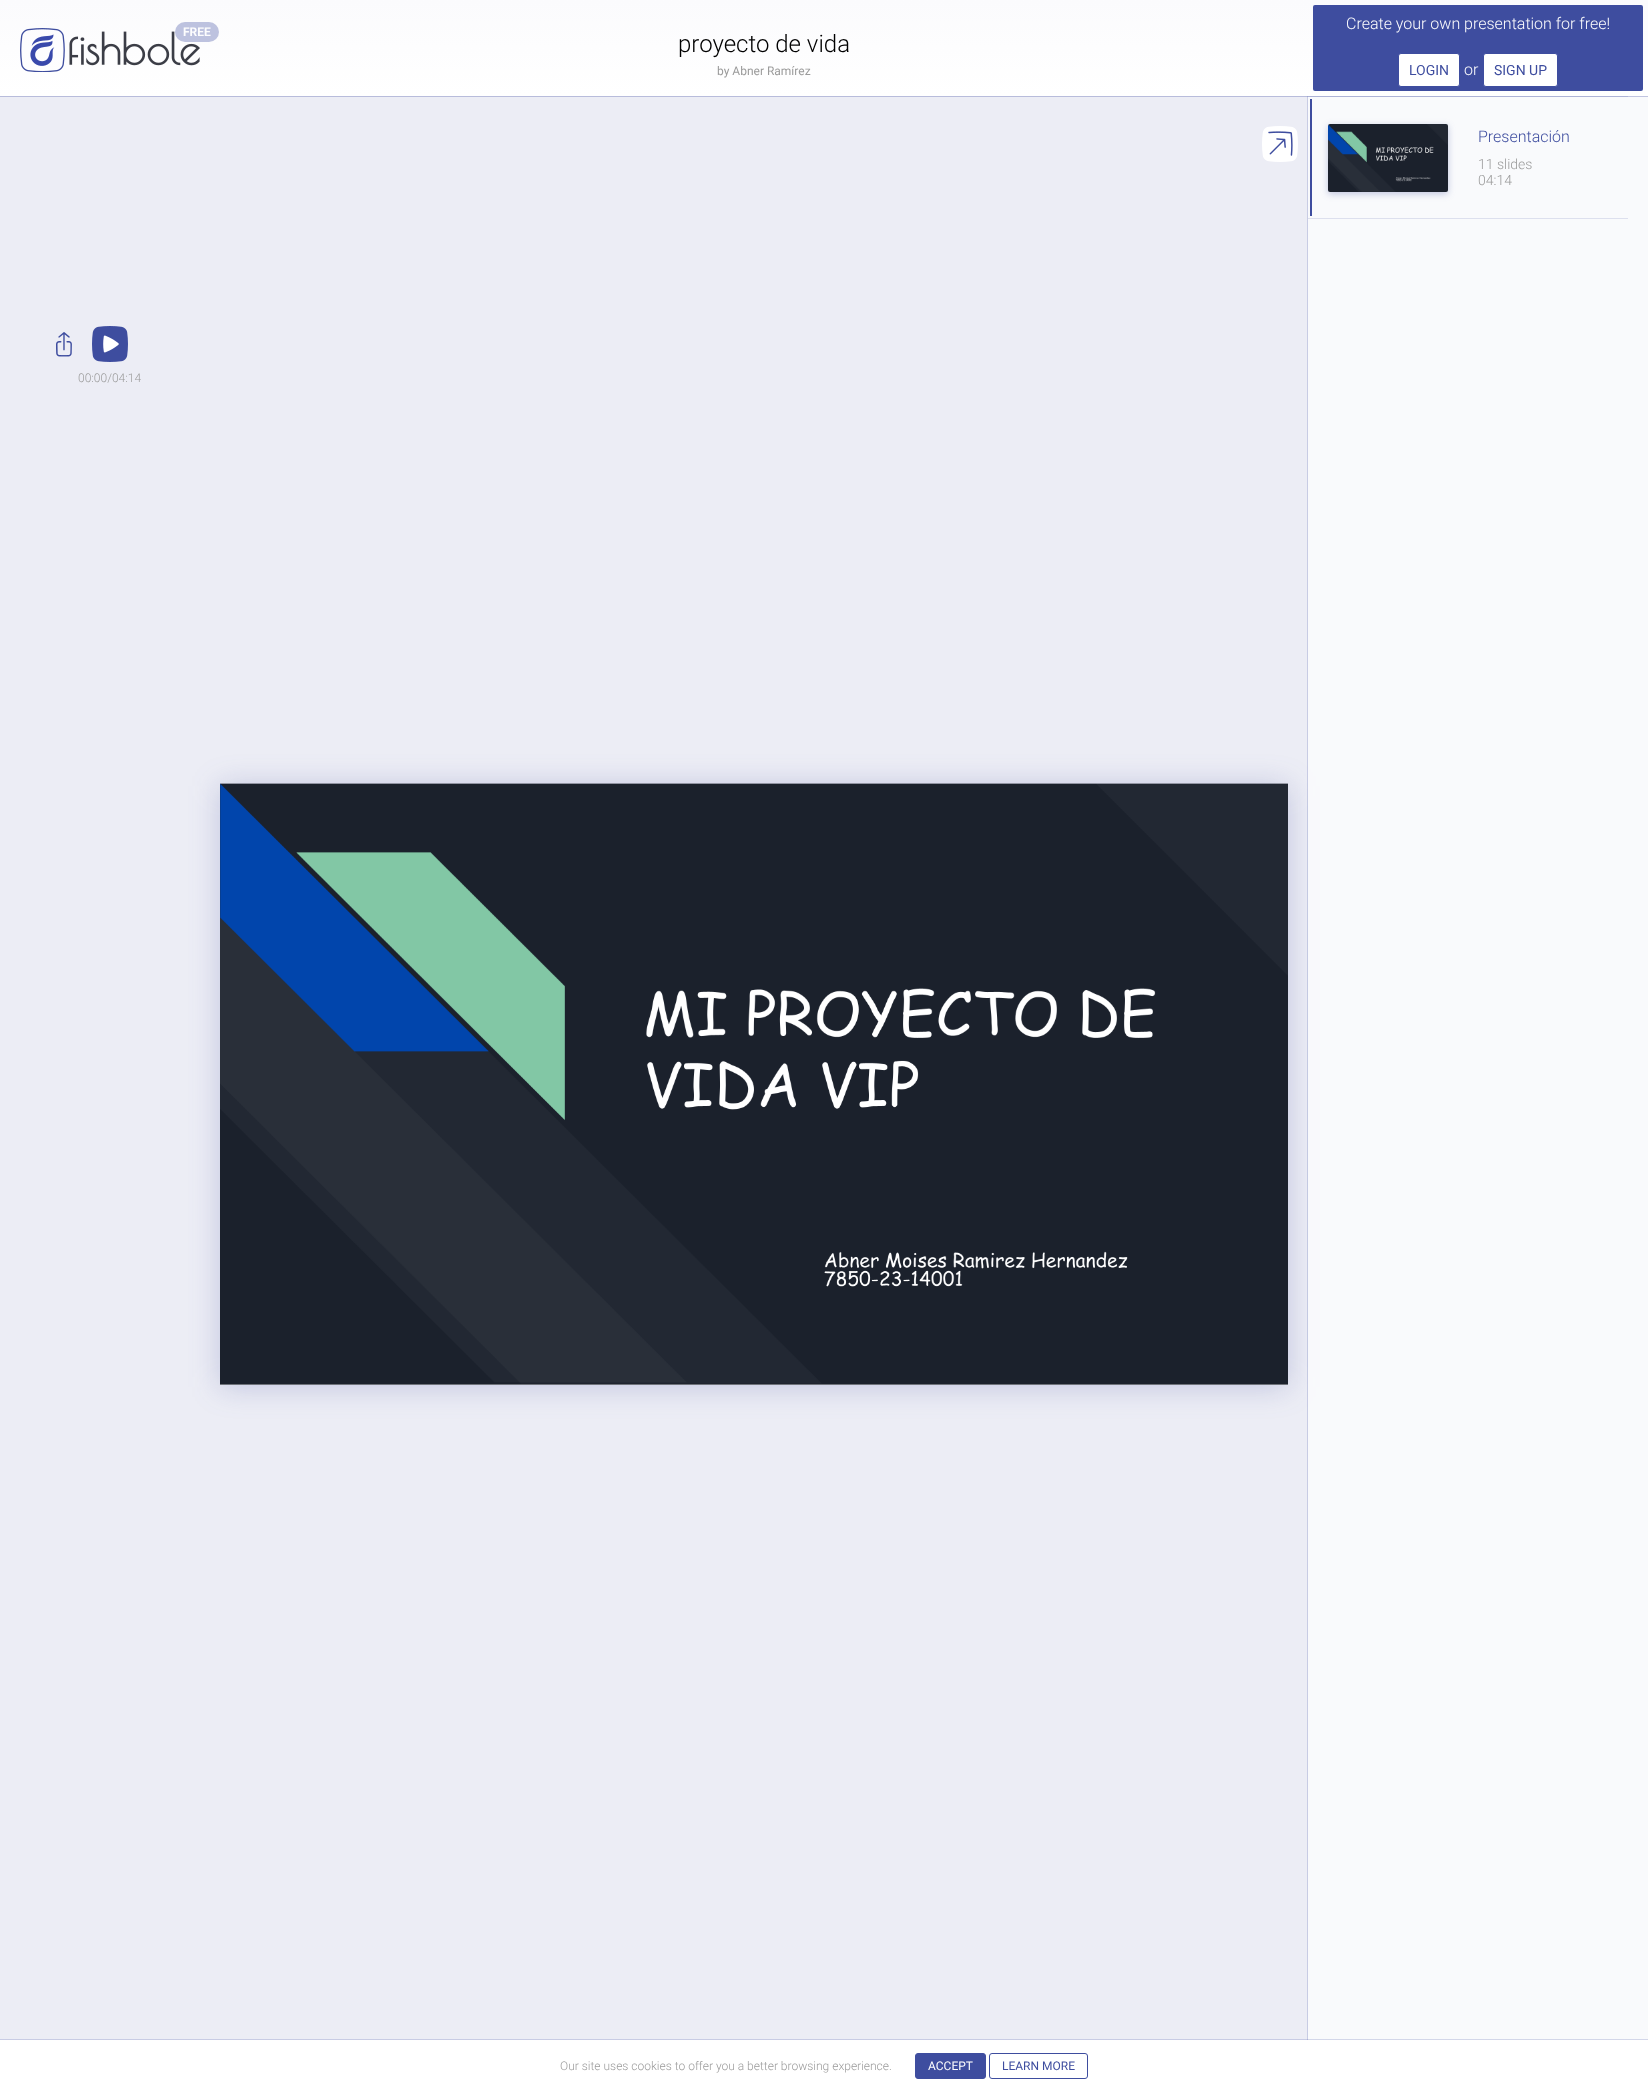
<!DOCTYPE html>
<meta charset="utf-8">
<style>body { margin: 0 } canvas { display: block }</style>
<canvas id="canvas" width="1648" height="2092"></canvas>
<img id="img1" src="images/1.png" hidden>
<img id="img2" src="images/2.png" hidden>
<img id="img3" src="images/3.png" hidden>
<img id="img4" src="images/4.png" hidden>
<img id="img5" src="images/5.png" hidden>
<img id="img6" src="images/6.png" hidden>
<script>
window.onload = function () {
    const canvas = document.getElementById('canvas');
    const context = canvas.getContext('2d');
    context.miterLimit = 4;
    context.fontKerning = 'normal';
    let gradient;

    context.fillStyle = 'rgb(236, 237, 245)';
    context.fillRect(0, 0, 1648, 2092);
    context.fillStyle = 'rgba(62, 77, 159, 0.25)';
    context.filter = 'blur(15px)';
    context.beginPath();
    context.rect(220, 786, 1068, 601);
    context.fill();
    context.filter = 'none';
    context.fillStyle = 'rgba(62, 77, 159, 0.2)';
    context.fillRect(1307, 96, 1, 1944);
    context.fillStyle = 'rgba(255, 255, 255, 0.7)';
    context.fillRect(1308, 96, 340, 1944);
    context.fillStyle = 'rgb(221, 224, 238)';
    context.fillRect(1308, 96, 320, 1);
    context.fillStyle = 'rgba(62, 77, 159, 0.3)';
    context.fillRect(0, 96, 1648, 1);
    gradient = context.createLinearGradient(824, 0, 824, 96);
    gradient.addColorStop(0, 'rgb(251, 251, 253)');
    gradient.addColorStop(1, 'rgb(255, 255, 255)');
    context.fillStyle = gradient;
    context.fillRect(0, 0, 1648, 96);
    context.drawImage(document.getElementById('img1'), 20, 28, 180, 44);
    context.fillStyle = 'rgb(189, 194, 223)';
    context.beginPath();
    context.roundRect(175, 22, 44, 20, 10);
    context.fill();
    context.fillStyle = 'rgb(62, 77, 159)';
    context.beginPath();
    context.roundRect(1313, 5, 330, 86, 2);
    context.fill();
    context.fillStyle = 'rgb(255, 255, 255)';
    context.beginPath();
    context.roundRect(1398.5, 53.5, 61, 33, 2.5);
    context.fill();
    context.strokeStyle = 'rgb(62, 77, 159)';
    context.stroke();
    context.beginPath();
    context.roundRect(1483.5, 53.5, 74, 33, 2.5);
    context.fill();
    context.stroke();
    context.drawImage(document.getElementById('img2'), 1262, 126, 36, 36);
    context.fillStyle = 'rgb(221, 224, 238)';
    context.fillRect(1308, 218, 320, 1);
    context.fillStyle = 'rgb(62, 77, 159)';
    context.fillRect(1310, 99, 2, 117);
    context.fillStyle = 'rgba(62, 77, 159, 0.3)';
    context.filter = 'blur(3.5px)';
    context.beginPath();
    context.roundRect(1328, 126, 120, 68, 2);
    context.fill();
    context.filter = 'none';
    context.drawImage(document.getElementById('img3'), 1328, 124, 120, 68);
    context.drawImage(document.getElementById('img4'), 56, 332, 16, 25);
    context.drawImage(document.getElementById('img5'), 92, 326, 36, 36);
    context.fillStyle = 'rgb(255, 255, 255)';
    context.fillRect(220, 1384, 1068, 1);
    context.drawImage(document.getElementById('img6'), 220, 783, 1068, 602);
    context.fillStyle = 'rgba(62, 77, 159, 0.2)';
    context.fillRect(0, 2039, 1648, 1);
    context.fillStyle = 'rgb(255, 255, 255)';
    context.fillRect(0, 2040, 1648, 52);
    context.fillStyle = 'rgb(62, 77, 159)';
    context.beginPath();
    context.roundRect(915.5, 2053.5, 70, 25, 2.5);
    context.fill();
    context.stroke();
    context.beginPath();
    context.roundRect(989.5, 2053.5, 98, 25, 2.5);
    context.stroke();
    context.font = 'bold 12px Roboto';
    context.fillStyle = 'rgb(253, 253, 254)';
    context.fillText('FREE', 183, 36);
    context.font = '300 16px Roboto';
    context.fillText('Create your own presentation for free!', 1346, 29);
    context.font = '14px Roboto';
    context.fillStyle = 'rgb(62, 77, 159)';
    context.fillText('LOGIN', 1409, 75);
    context.font = '300 16px Roboto';
    context.fillStyle = 'rgb(253, 253, 254)';
    context.fillText('or', 1464, 75);
    context.font = '14px Roboto';
    context.fillStyle = 'rgb(62, 77, 159)';
    context.fillText('SIGN UP', 1494, 75);
    context.font = '300 24px Roboto';
    context.fillStyle = 'rgb(0, 0, 0)';
    context.fillText('proyecto de vida', 678, 52);
    context.font = '12px Roboto';
    context.fillStyle = 'rgb(155, 155, 155)';
    context.fillText('by Abner Ramírez', 717, 75);
    context.font = '300 16px Roboto';
    context.fillStyle = 'rgb(62, 77, 159)';
    context.fillText('Presentación', 1478, 142);
    context.font = '300 14px Roboto';
    context.fillStyle = 'rgb(155, 155, 155)';
    context.fillText('11 slides', 1478, 169);
    context.fillText('04:14', 1478, 185);
    context.font = '300 12px Roboto';
    context.fillText('00:00/04:14', 78, 382);
    context.fillText('Our site uses cookies to offer you a better browsing experience.', 560, 2070);
    context.font = '12px Roboto';
    context.fillStyle = 'rgb(253, 253, 254)';
    context.fillText('ACCEPT', 928, 2070);
    context.fillStyle = 'rgb(62, 77, 159)';
    context.fillText('LEARN MORE', 1002, 2070);
};
</script>
